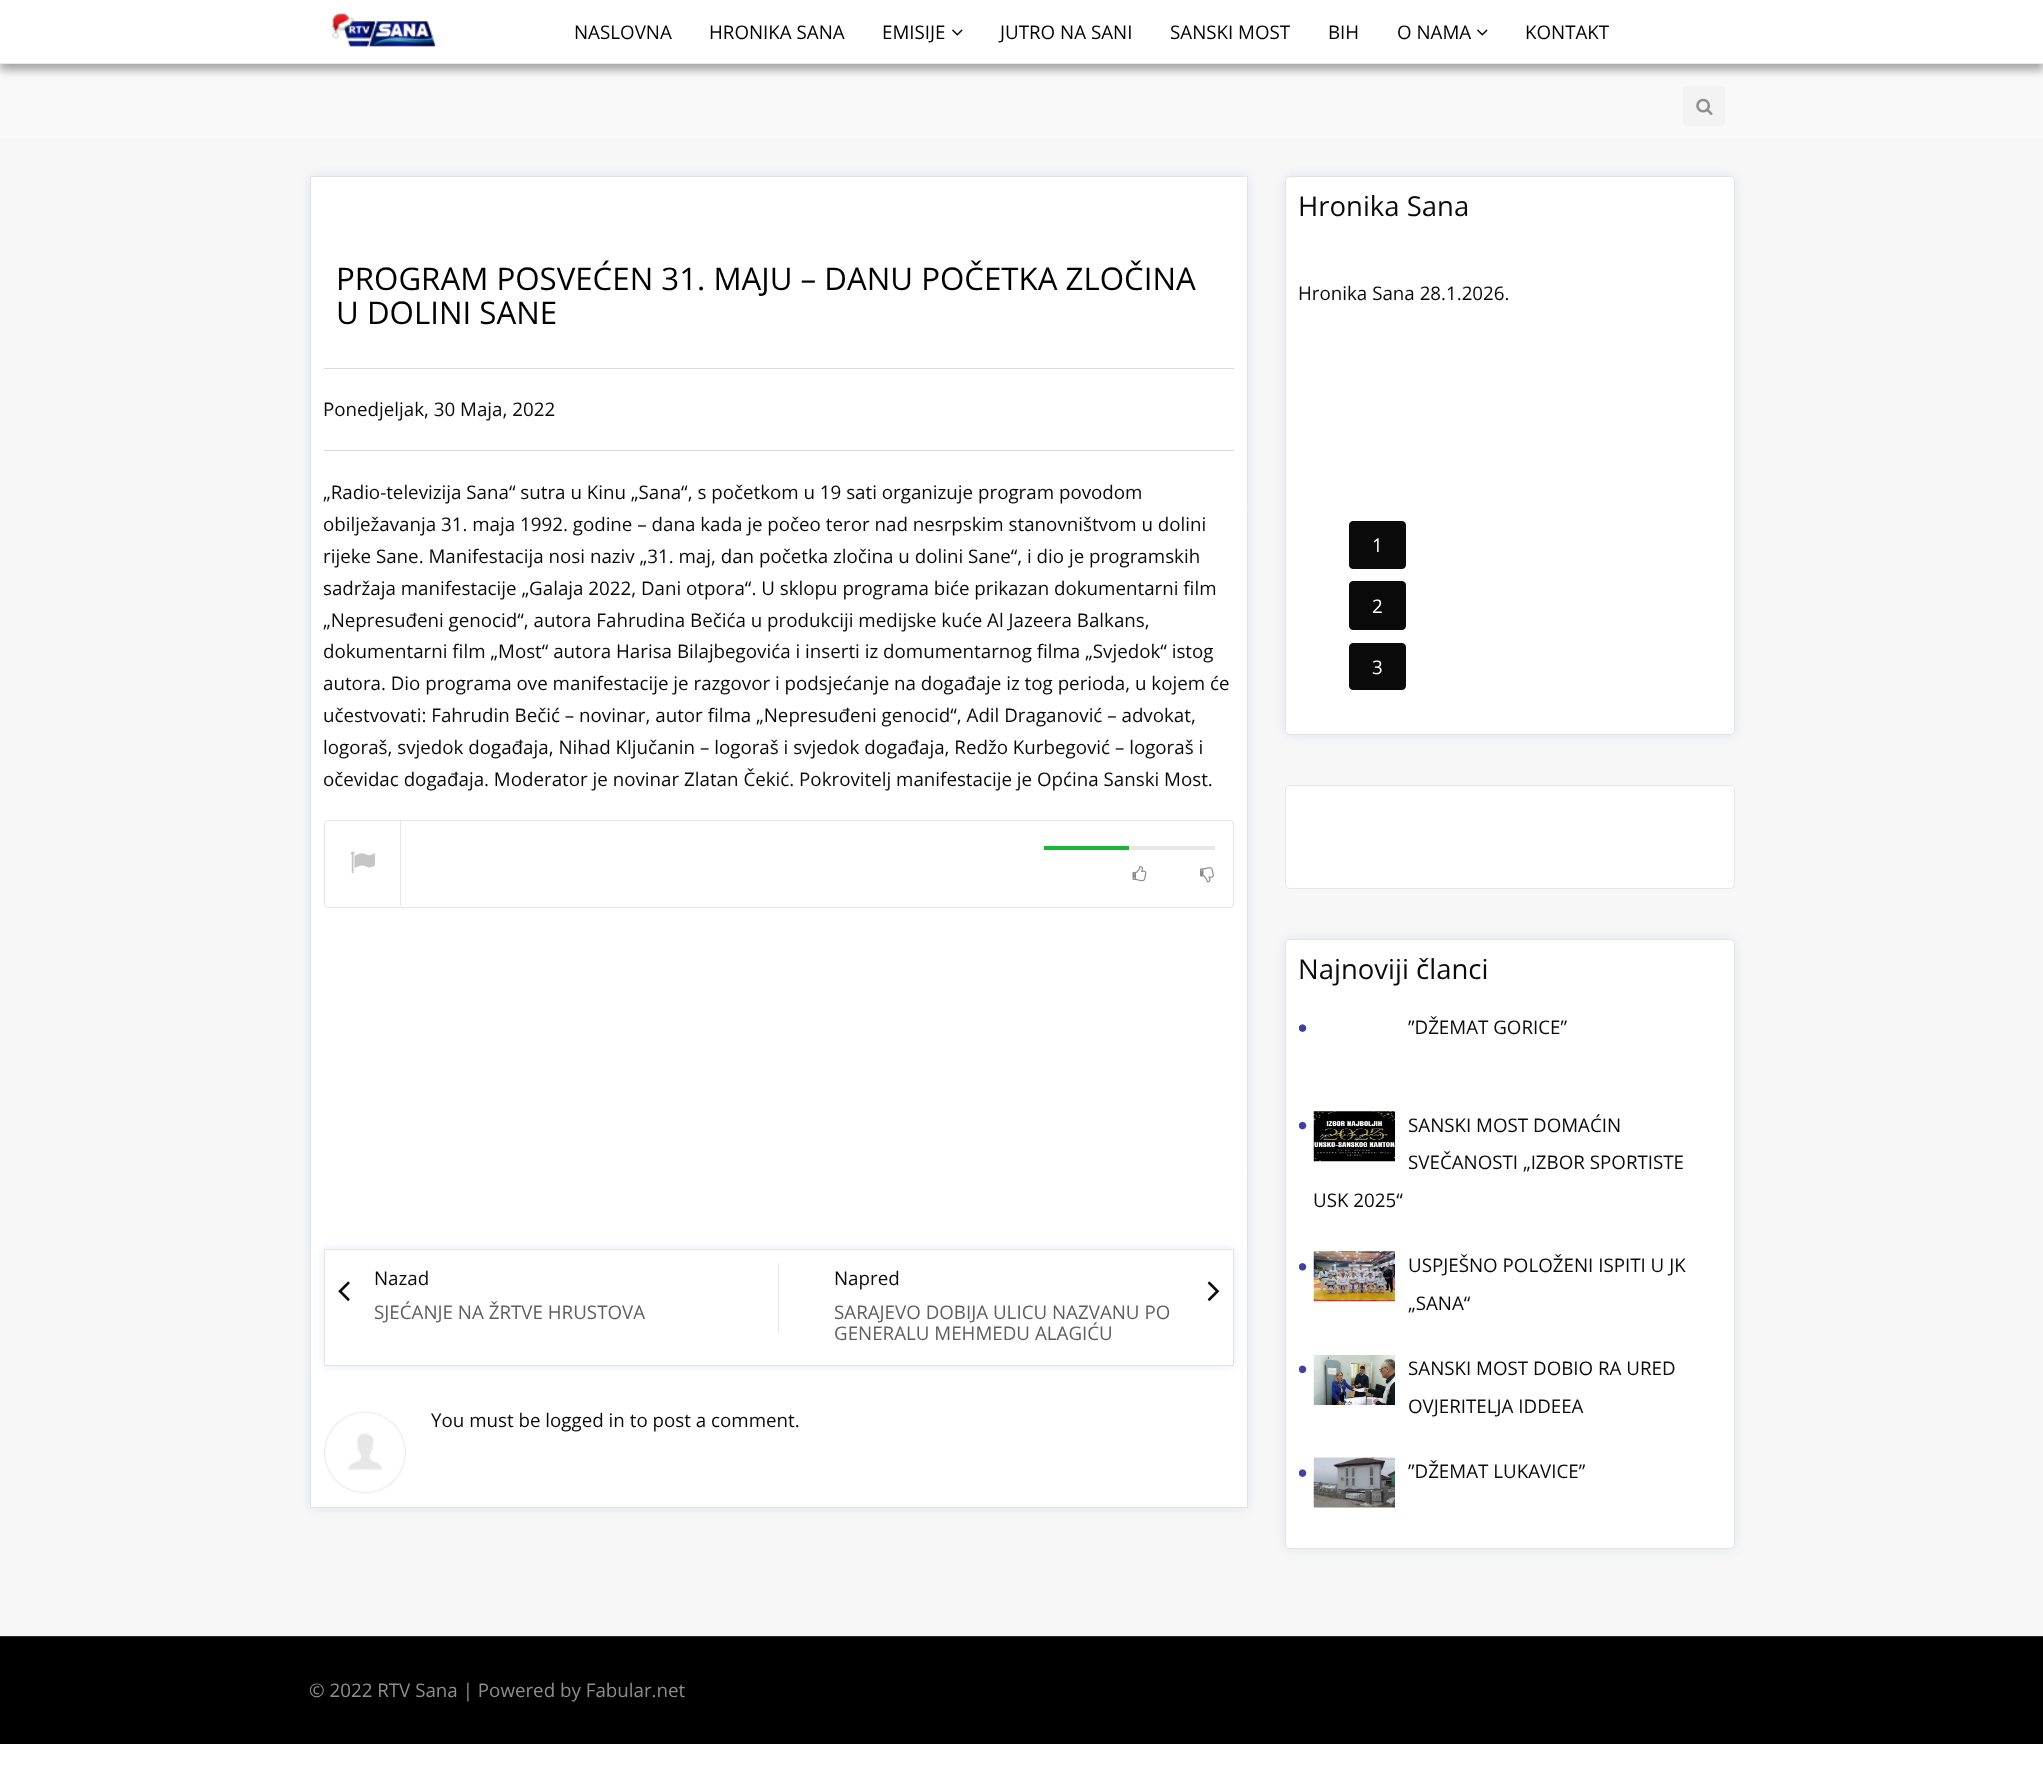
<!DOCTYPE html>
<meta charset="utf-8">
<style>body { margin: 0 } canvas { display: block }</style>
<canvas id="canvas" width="2043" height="1787"></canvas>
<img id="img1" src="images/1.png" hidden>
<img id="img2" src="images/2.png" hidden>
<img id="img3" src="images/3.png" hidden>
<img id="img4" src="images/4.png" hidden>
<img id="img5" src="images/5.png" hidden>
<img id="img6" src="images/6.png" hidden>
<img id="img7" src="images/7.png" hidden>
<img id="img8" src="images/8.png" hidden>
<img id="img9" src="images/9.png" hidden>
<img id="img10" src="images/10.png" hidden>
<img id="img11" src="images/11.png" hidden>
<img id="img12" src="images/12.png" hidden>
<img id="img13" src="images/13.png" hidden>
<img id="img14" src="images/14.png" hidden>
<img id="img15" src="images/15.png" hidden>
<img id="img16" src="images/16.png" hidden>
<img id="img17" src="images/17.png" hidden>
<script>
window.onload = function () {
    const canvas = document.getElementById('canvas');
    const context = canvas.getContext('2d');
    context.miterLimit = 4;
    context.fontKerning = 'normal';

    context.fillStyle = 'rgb(255, 255, 255)';
    context.fillRect(0, 0, 2043, 1787);
    context.fillStyle = 'rgb(247, 247, 247)';
    context.fillRect(0, 139, 2043, 1497);
    context.fillStyle = 'rgb(249, 249, 249)';
    context.fillRect(0, 64, 2043, 75);
    context.fillStyle = 'rgba(0, 0, 0, 0.35)';
    context.filter = 'blur(5px)';
    context.beginPath();
    context.rect(0, 6, 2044, 64);
    context.fill();
    context.filter = 'none';
    context.fillStyle = 'rgb(255, 255, 255)';
    context.fillRect(0, 0, 2043, 63);
    context.fillStyle = 'rgb(231, 231, 231)';
    context.fillRect(0, 63, 2043, 1);
    context.drawImage(document.getElementById('img1'), 332, 13, 104, 34);
    context.drawImage(document.getElementById('img2'), 952, 29, 11, 7);
    context.drawImage(document.getElementById('img2'), 1477, 29, 11, 7);
    context.fillStyle = 'rgb(243, 243, 243)';
    context.beginPath();
    context.roundRect(1683, 86, 42, 40, 2.5);
    context.fill();
    context.drawImage(document.getElementById('img3'), 1696, 98, 17, 17);
    context.fillStyle = 'rgba(34, 62, 153, 0.1)';
    context.filter = 'blur(6px)';
    context.beginPath();
    context.rect(310, 176, 938, 1332);
    context.fill();
    context.filter = 'none';
    context.fillStyle = 'rgb(255, 255, 255)';
    context.beginPath();
    context.rect(310.5, 176.5, 937, 1331);
    context.fill();
    context.strokeStyle = 'rgb(227, 227, 227)';
    context.stroke();
    context.fillStyle = 'rgb(218, 218, 218)';
    context.fillRect(324, 368, 910, 1);
    context.fillRect(324, 450, 910, 1);
    context.beginPath();
    context.roundRect(324.5, 820.5, 909, 87, 3.5);
    context.strokeStyle = 'rgb(231, 231, 231)';
    context.stroke();
    context.fillStyle = 'rgb(231, 231, 231)';
    context.fillRect(400, 821, 1, 85);
    context.drawImage(document.getElementById('img4'), 351, 851, 24, 22);
    context.fillRect(1129, 846, 86, 4);
    context.fillStyle = 'rgb(24, 183, 54)';
    context.fillRect(1044, 846, 85, 4);
    context.drawImage(document.getElementById('img5'), 1132, 866, 15, 16);
    context.drawImage(document.getElementById('img6'), 1200, 867, 14, 16);
    context.fillStyle = 'rgba(34, 62, 153, 0.1)';
    context.filter = 'blur(6px)';
    context.beginPath();
    context.rect(324, 1249, 910, 117);
    context.fill();
    context.filter = 'none';
    context.fillStyle = 'rgb(255, 255, 255)';
    context.beginPath();
    context.rect(324.5, 1249.5, 909, 116);
    context.fill();
    context.strokeStyle = 'rgb(227, 227, 227)';
    context.stroke();
    context.fillStyle = 'rgb(231, 231, 231)';
    context.fillRect(778, 1263, 1, 70);
    context.drawImage(document.getElementById('img7'), 338, 1281, 12, 20);
    context.drawImage(document.getElementById('img8'), 1207, 1281, 13, 20);
    context.drawImage(document.getElementById('img9'), 324, 1411, 82, 83);
    context.fillStyle = 'rgba(34, 62, 153, 0.1)';
    context.filter = 'blur(6px)';
    context.beginPath();
    context.roundRect(1285, 176, 450, 559, 5);
    context.fill();
    context.filter = 'none';
    context.fillStyle = 'rgb(255, 255, 255)';
    context.beginPath();
    context.roundRect(1285.5, 176.5, 449, 558, 4.5);
    context.fill();
    context.stroke();
    context.fillStyle = 'rgb(10, 10, 10)';
    context.beginPath();
    context.roundRect(1349.5, 521.5, 56, 47, 3.5);
    context.fill();
    context.strokeStyle = 'rgb(10, 10, 10)';
    context.stroke();
    context.beginPath();
    context.roundRect(1349.5, 581.5, 56, 48, 3.5);
    context.fill();
    context.stroke();
    context.beginPath();
    context.roundRect(1349.5, 643.5, 56, 46, 3.5);
    context.fill();
    context.stroke();
    context.fillStyle = 'rgb(255, 255, 255)';
    context.beginPath();
    context.roundRect(1285.5, 785.5, 449, 103, 4.5);
    context.fill();
    context.strokeStyle = 'rgb(231, 231, 231)';
    context.stroke();
    context.fillStyle = 'rgba(34, 62, 153, 0.1)';
    context.filter = 'blur(6px)';
    context.beginPath();
    context.roundRect(1285, 939, 450, 610, 5);
    context.fill();
    context.filter = 'none';
    context.fillStyle = 'rgb(255, 255, 255)';
    context.beginPath();
    context.roundRect(1285.5, 939.5, 449, 609, 4.5);
    context.fill();
    context.strokeStyle = 'rgb(227, 227, 227)';
    context.stroke();
    context.drawImage(document.getElementById('img10'), 1299, 1024, 8, 8);
    context.drawImage(document.getElementById('img11'), 1299, 1121, 8, 9);
    context.drawImage(document.getElementById('img12'), 1313, 1111, 82, 51);
    context.drawImage(document.getElementById('img13'), 1299, 1263, 8, 8);
    context.drawImage(document.getElementById('img14'), 1313, 1251, 82, 51);
    context.drawImage(document.getElementById('img15'), 1299, 1365, 8, 9);
    context.drawImage(document.getElementById('img16'), 1313, 1355, 82, 50);
    context.drawImage(document.getElementById('img10'), 1299, 1469, 8, 8);
    context.drawImage(document.getElementById('img17'), 1313, 1457, 82, 51);
    context.fillStyle = 'rgb(0, 0, 0)';
    context.fillRect(0, 1637, 2043, 107);
    context.fillStyle = 'rgb(43, 43, 43)';
    context.fillRect(0, 1636, 2043, 1);
    context.font = '18.75px Open Sans';
    context.fillStyle = 'rgb(0, 0, 0)';
    context.fillText('NASLOVNA', 574, 39);
    context.fillText('HRONIKA SANA', 709, 39);
    context.fillText('EMISIJE', 882, 39);
    context.fillText('JUTRO NA SANI', 1000, 39);
    context.fillText('SANSKI MOST', 1170, 39);
    context.fillText('BIH', 1328, 39);
    context.fillText('O NAMA', 1397, 39);
    context.fillText('KONTAKT', 1525, 39);
    context.font = '31.25px Open Sans';
    context.fillText('PROGRAM POSVEĆEN 31. MAJU – DANU POČETKA ZLOČINA', 336, 290);
    context.fillText('U DOLINI SANE', 336, 324);
    context.font = '18.75px Open Sans';
    context.fillStyle = 'rgb(10, 10, 10)';
    context.fillText('Ponedjeljak, 30 Maja, 2022', 323, 416);
    context.fillText('„Radio-televizija Sana“ sutra u Kinu „Sana“, s početkom u 19 sati organizuje program povodom', 323, 499);
    context.fillText('obilježavanja 31. maja 1992. godine – dana kada je počeo teror nad nesrpskim stanovništvom u dolini', 323, 531);
    context.fillText('rijeke Sane. Manifestacija nosi naziv „31. maj, dan početka zločina u dolini Sane“, i dio je programskih', 323, 563);
    context.fillText('sadržaja manifestacije „Galaja 2022, Dani otpora“. U sklopu programa biće prikazan dokumentarni film', 323, 595);
    context.fillText('„Nepresuđeni genocid“, autora Fahrudina Bečića u produkciji medijske kuće Al Jazeera Balkans,', 323, 627);
    context.fillText('dokumentarni film „Most“ autora Harisa Bilajbegovića i inserti iz domumentarnog filma „Svjedok“ istog', 323, 658);
    context.fillText('autora. Dio programa ove manifestacije je razgovor i podsjećanje na događaje iz tog perioda, u kojem će', 323, 690);
    context.fillText('učestvovati: Fahrudin Bečić – novinar, autor filma „Nepresuđeni genocid“, Adil Draganović – advokat,', 323, 722);
    context.fillText('logoraš, svjedok događaja, Nihad Ključanin – logoraš i svjedok događaja, Redžo Kurbegović – logoraš i', 323, 754);
    context.fillText('očevidac događaja. Moderator je novinar Zlatan Čekić. Pokrovitelj manifestacije je Općina Sanski Most.', 323, 786);
    context.fillText('Nazad', 374, 1285);
    context.fillStyle = 'rgb(95, 95, 95)';
    context.fillText('SJEĆANJE NA ŽRTVE HRUSTOVA', 374, 1319);
    context.fillStyle = 'rgb(10, 10, 10)';
    context.fillText('Napred', 834, 1285);
    context.fillStyle = 'rgb(95, 95, 95)';
    context.fillText('SARAJEVO DOBIJA ULICU NAZVANU PO', 834, 1319);
    context.fillText('GENERALU MEHMEDU ALAGIĆU', 834, 1340);
    context.fillStyle = 'rgb(10, 10, 10)';
    context.fillText('You must be logged in to post a comment.', 431, 1427);
    context.font = '27.5px Open Sans';
    context.fillText('Hronika Sana', 1298, 216);
    context.font = '18.75px Open Sans';
    context.fillText('Hronika Sana 28.1.2026.', 1298, 300);
    context.fillStyle = 'rgb(255, 255, 255)';
    context.fillText('1', 1372, 552);
    context.fillText('2', 1372, 613);
    context.fillText('3', 1372, 674);
    context.font = '27.5px Open Sans';
    context.fillStyle = 'rgb(10, 10, 10)';
    context.fillText('Najnoviji članci', 1298, 979);
    context.font = '18.75px Open Sans';
    context.fillText('”DŽEMAT GORICE”', 1408, 1034);
    context.fillText('SANSKI MOST DOMAĆIN', 1408, 1132);
    context.fillText('SVEČANOSTI „IZBOR SPORTISTE', 1408, 1169);
    context.fillText('USK 2025“', 1313, 1207);
    context.fillText('USPJEŠNO POLOŽENI ISPITI U JK', 1408, 1272);
    context.fillText('„SANA“', 1408, 1310);
    context.fillText('SANSKI MOST DOBIO RA URED', 1408, 1375);
    context.fillText('OVJERITELJA IDDEEA', 1408, 1413);
    context.fillText('”DŽEMAT LUKAVICE”', 1408, 1478);
    context.fillStyle = 'rgb(142, 142, 142)';
    context.fillText('© 2022 RTV Sana | Powered by Fabular.net', 309, 1697);
};
</script>
